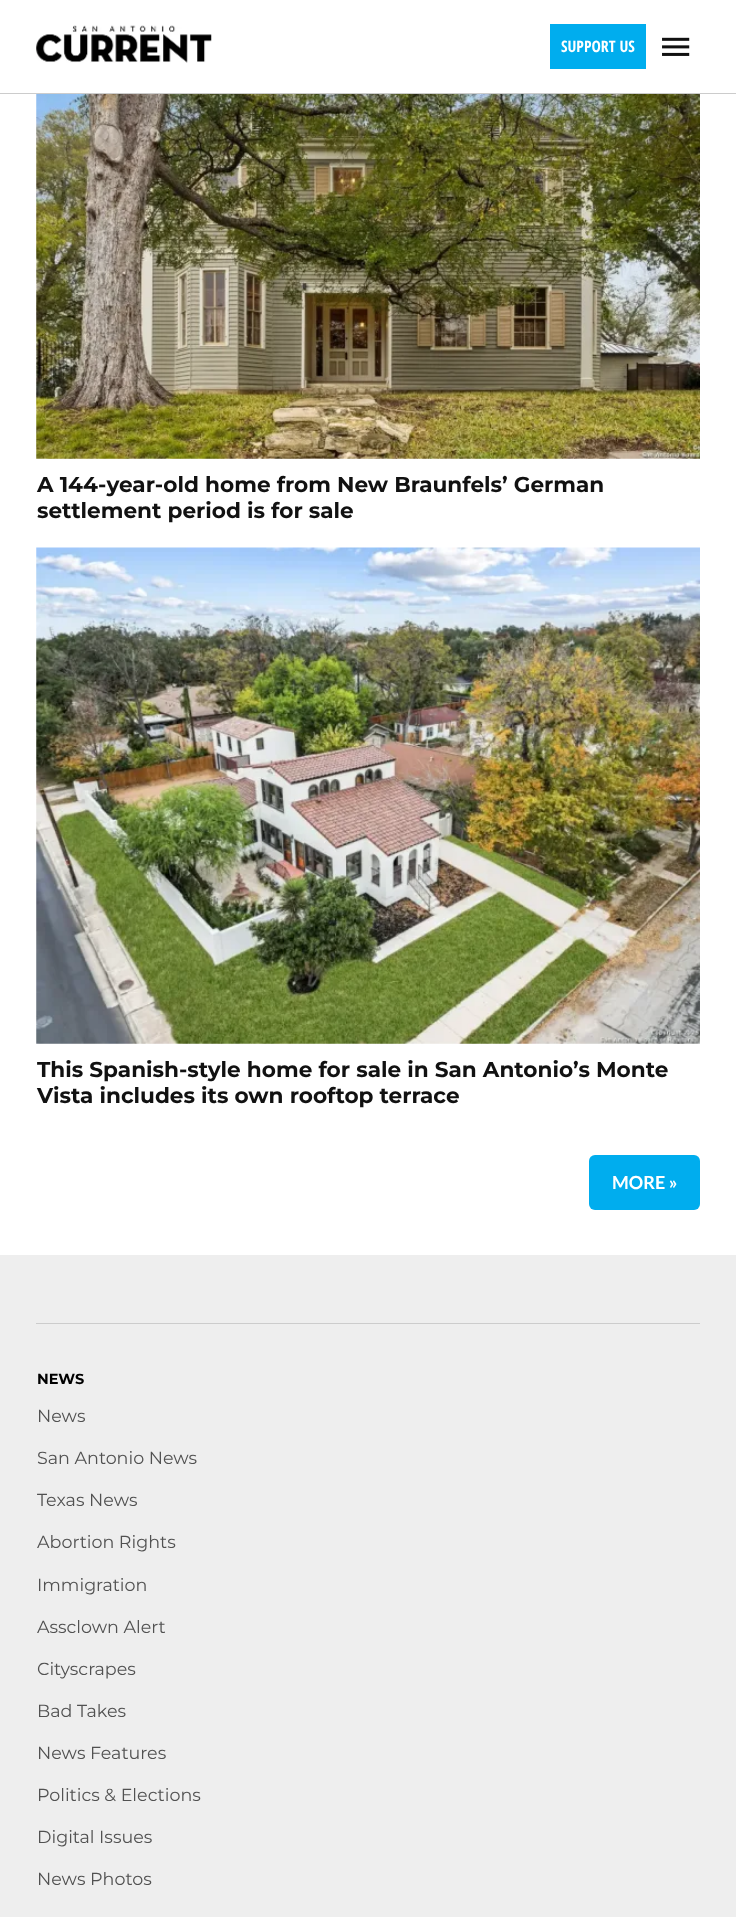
<!DOCTYPE html>
<meta charset="utf-8">
<style>body { margin: 0 } canvas { display: block }</style>
<canvas id="canvas" width="736" height="1917"></canvas>
<img id="img1" src="images/1.png" hidden>
<img id="img2" src="images/2.png" hidden>
<img id="img3" src="images/3.png" hidden>
<img id="img4" src="images/4.png" hidden>
<script>
window.onload = function () {
    const canvas = document.getElementById('canvas');
    const context = canvas.getContext('2d');
    context.miterLimit = 4;
    context.fontKerning = 'normal';

    context.fillStyle = 'rgb(255, 255, 255)';
    context.fillRect(0, 0, 736, 1917);
    context.fillStyle = 'rgb(204, 204, 204)';
    context.fillRect(0, 93, 736, 1);
    context.drawImage(document.getElementById('img1'), 36, 25, 176, 38);
    context.fillStyle = 'rgb(0, 173, 238)';
    context.fillRect(550, 24, 96, 45);
    context.drawImage(document.getElementById('img2'), 662, 37, 28, 19);
    context.drawImage(document.getElementById('img3'), 36, 94, 664, 365);
    context.drawImage(document.getElementById('img4'), 36, 547, 664, 497);
    context.beginPath();
    context.roundRect(589, 1155, 111, 55, 6);
    context.fill();
    context.fillStyle = 'rgb(238, 238, 238)';
    context.fillRect(0, 1255, 736, 662);
    context.fillStyle = 'rgb(204, 204, 204)';
    context.fillRect(36, 1323, 664, 1);
    context.font = 'bold 15.75px Open Sans Condensed';
    context.fillStyle = 'rgb(255, 255, 255)';
    context.fillText('SUPPORT US', 561, 52);
    context.font = 'bold 21.6px Montserrat';
    context.fillStyle = 'rgb(17, 17, 17)';
    context.fillText('A 144-year-old home from New Braunfels’ German', 37, 492);
    context.fillText('settlement period is for sale', 37, 518);
    context.fillText('This Spanish-style home for sale in San Antonio’s Monte', 37, 1077);
    context.fillText('Vista includes its own rooftop terrace', 37, 1103);
    context.font = 'bold 18px Lato';
    context.fillStyle = 'rgb(255, 255, 255)';
    context.fillText('MORE »', 612, 1189);
    context.font = 'bold 14.5px Montserrat';
    context.fillStyle = 'rgb(0, 0, 0)';
    context.fillText('NEWS', 37, 1384);
    context.font = '17.5px Montserrat';
    context.fillStyle = 'rgb(81, 81, 81)';
    context.fillText('News', 37, 1422);
    context.fillText('San Antonio News', 37, 1464);
    context.fillText('Texas News', 37, 1506);
    context.fillText('Abortion Rights', 37, 1548);
    context.fillText('Immigration', 37, 1591);
    context.fillText('Assclown Alert', 37, 1633);
    context.fillText('Cityscrapes', 37, 1675);
    context.fillText('Bad Takes', 37, 1717);
    context.fillText('News Features', 37, 1759);
    context.fillText('Politics & Elections', 37, 1801);
    context.fillText('Digital Issues', 37, 1843);
    context.fillText('News Photos', 37, 1885);
};
</script>
